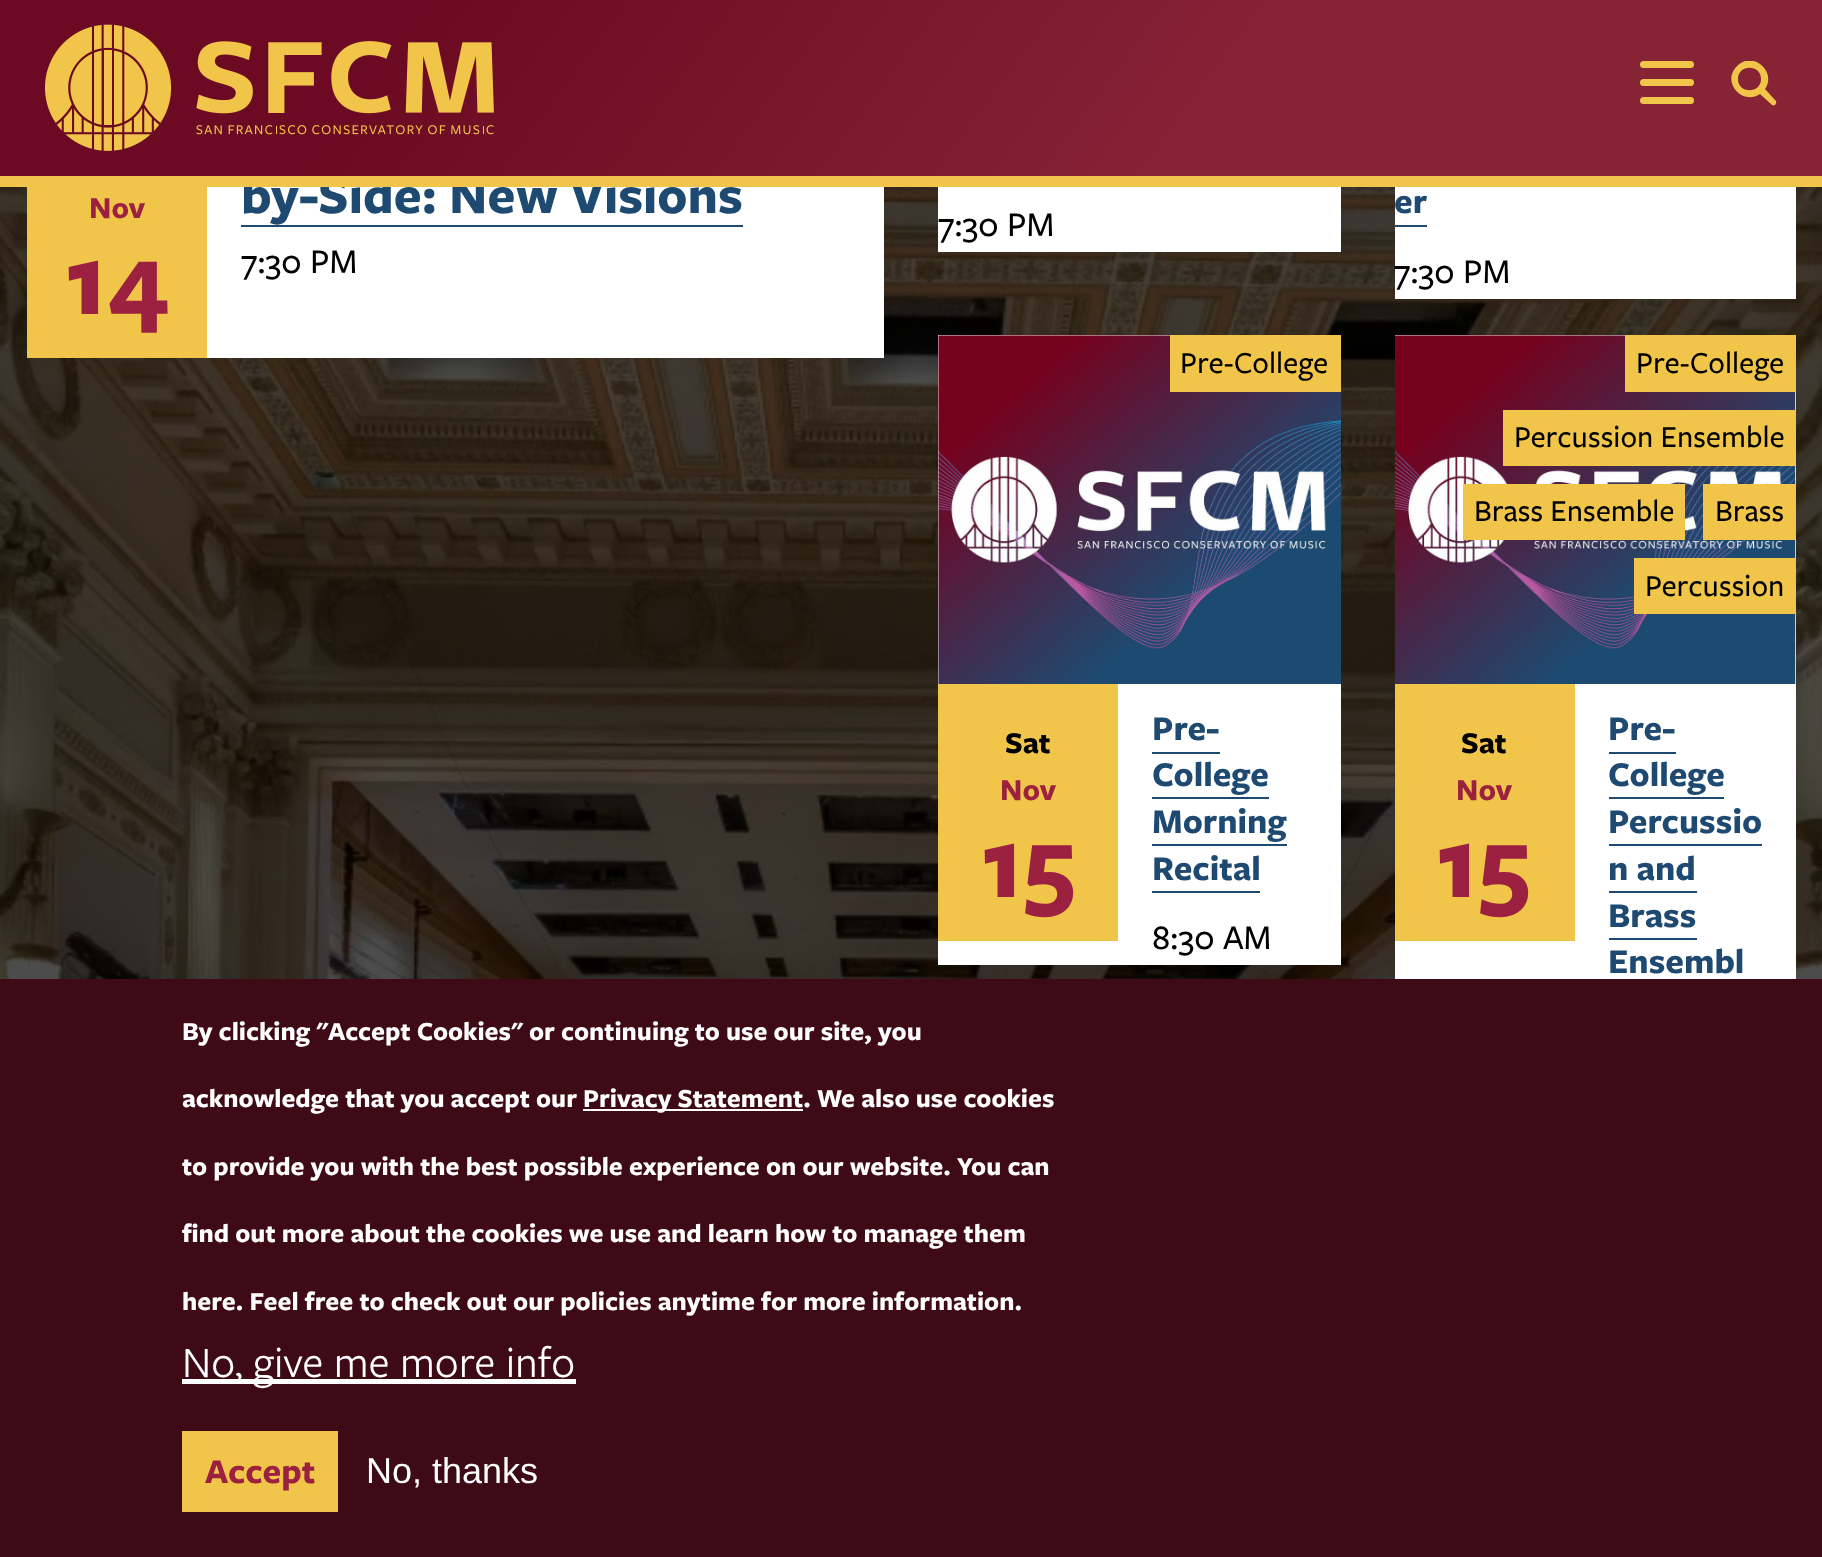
<!DOCTYPE html>
<meta charset="utf-8">
<style>body { margin: 0 } canvas { display: block }</style>
<canvas id="canvas" width="1822" height="1557"></canvas>
<img id="img1" src="images/2.png" hidden>
<img id="img2" src="images/3.png" hidden>
<img id="img3" src="images/4.png" hidden>
<img id="img4" src="images/1.png" hidden>
<script>
window.onload = function () {
    const canvas = document.getElementById('canvas');
    const context = canvas.getContext('2d');
    context.miterLimit = 4;
    context.fontKerning = 'normal';
    let gradient;

    context.fillStyle = 'rgb(255, 255, 255)';
    context.fillRect(0, 0, 1822, 1557);
    context.drawImage(document.getElementById('img1'), 0, 187, 1822, 792);
    context.fillRect(207, 187, 677, 171);
    context.fillStyle = 'rgb(241, 196, 74)';
    context.fillRect(27, 187, 180, 171);
    context.fillStyle = 'rgb(30, 74, 114)';
    context.fillRect(241, 225, 502, 2);
    context.fillStyle = 'rgb(255, 255, 255)';
    context.fillRect(938, 187, 403, 65);
    context.fillRect(1395, 187, 401, 112);
    context.fillStyle = 'rgb(30, 74, 114)';
    context.fillRect(1395, 225, 32, 2);
    context.fillStyle = 'rgb(255, 255, 255)';
    context.fillRect(938, 335, 403, 630);
    context.drawImage(document.getElementById('img2'), 938, 335, 403, 349);
    context.fillStyle = 'rgb(241, 196, 74)';
    context.fillRect(1170, 335, 171, 57);
    context.fillRect(938, 684, 180, 257);
    context.fillStyle = 'rgb(30, 74, 114)';
    context.fillRect(1152, 752, 68, 2);
    context.fillRect(1152, 797, 117, 2);
    context.fillRect(1152, 844, 135, 2);
    context.fillRect(1152, 891, 108, 2);
    context.fillStyle = 'rgb(255, 255, 255)';
    context.fillRect(1395, 335, 401, 644);
    context.drawImage(document.getElementById('img3'), 1395, 335, 401, 349);
    context.fillStyle = 'rgb(241, 196, 74)';
    context.fillRect(1625, 335, 171, 57);
    context.fillRect(1503, 410, 293, 56);
    context.fillRect(1463, 484, 222, 56);
    context.fillRect(1703, 484, 93, 56);
    context.fillRect(1634, 558, 162, 56);
    context.fillRect(1395, 684, 180, 257);
    context.fillStyle = 'rgb(30, 74, 114)';
    context.fillRect(1609, 752, 67, 2);
    context.fillRect(1609, 797, 115, 2);
    context.fillRect(1609, 844, 153, 2);
    context.fillRect(1609, 891, 88, 2);
    context.fillRect(1609, 938, 88, 2);
    context.fillStyle = 'rgb(61, 10, 21)';
    context.fillRect(0, 979, 1822, 578);
    context.fillStyle = 'rgb(255, 255, 255)';
    context.fillRect(583, 1109, 220, 2);
    context.fillRect(182, 1379, 394, 5);
    context.fillStyle = 'rgb(241, 196, 74)';
    context.fillRect(182, 1431, 156, 81);
    context.font = 'bold 31.5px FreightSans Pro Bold';
    context.fillStyle = 'rgb(156, 33, 64)';
    context.fillText('Nov', 89, 218);
    context.font = 'bold 108px FreightSans Pro Bold';
    context.fillText('14', 65, 314);
    context.font = 'bold 54px FreightSans Pro Bold';
    context.fillStyle = 'rgb(30, 74, 114)';
    context.fillText('by-Side: New Visions', 241, 213);
    gradient = context.createLinearGradient(284, -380, 1538, 556);
    gradient.addColorStop(0.22, 'rgb(107, 10, 34)');
    gradient.addColorStop(0.67, 'rgb(134, 35, 53)');
    context.fillStyle = gradient;
    context.fillRect(0, 0, 1822, 176);
    context.fillStyle = 'rgb(241, 196, 74)';
    context.beginPath();
    context.roundRect(1640, 97, 54, 7, 3.5);
    context.fill();
    context.beginPath();
    context.roundRect(1640, 79, 54, 7, 3.5);
    context.fill();
    context.beginPath();
    context.roundRect(1640, 61, 54, 7, 3.5);
    context.fill();
    context.save();
    context.beginPath();
    context.rect(1730, 61, 48, 45);
    context.clip();
    context.beginPath();
    context.moveTo(1775, 100);
    context.lineTo(1765, 89);
    context.bezierCurveTo(1777, 72, 1753, 50, 1737, 66);
    context.bezierCurveTo(1721, 82, 1742, 106, 1760, 94);
    context.lineTo(1772, 105);
    context.bezierCurveTo(1775, 107, 1778, 102, 1775, 100);
    context.closePath();
    context.moveTo(1738, 79);
    context.bezierCurveTo(1738, 64, 1761, 64, 1761, 79);
    context.bezierCurveTo(1761, 94, 1738, 94, 1738, 79);
    context.closePath();
    context.fill();
    context.restore();
    context.drawImage(document.getElementById('img4'), 45, 24, 449, 127);
    context.fillRect(0, 176, 1822, 11);
    context.font = '500 36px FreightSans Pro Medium';
    context.fillStyle = 'rgb(0, 0, 0)';
    context.fillText('7:30 PM', 241, 273);
    context.fillText('7:30 PM', 938, 236);
    context.font = 'bold 36px FreightSans Pro Bold';
    context.fillStyle = 'rgb(30, 74, 114)';
    context.fillText('er', 1394, 213);
    context.font = '500 36px FreightSans Pro Medium';
    context.fillStyle = 'rgb(0, 0, 0)';
    context.fillText('7:30 PM', 1394, 283);
    context.font = '500 31.5px FreightSans Pro Medium';
    context.fillText('Pre-College', 1180, 373);
    context.font = 'bold 31.5px FreightSans Pro Bold';
    context.fillText('Sat', 1005, 753);
    context.fillStyle = 'rgb(156, 33, 64)';
    context.fillText('Nov', 1000, 800);
    context.font = 'bold 108px FreightSans Pro Bold';
    context.fillText('15', 981, 897);
    context.font = 'bold 36px FreightSans Pro Bold';
    context.fillStyle = 'rgb(30, 74, 114)';
    context.fillText('Pre-', 1152, 740);
    context.fillText('College', 1152, 786);
    context.fillText('Morning', 1152, 833);
    context.fillText('Recital', 1152, 880);
    context.font = '500 36px FreightSans Pro Medium';
    context.fillStyle = 'rgb(0, 0, 0)';
    context.fillText('8:30 AM', 1152, 949);
    context.font = '500 31.5px FreightSans Pro Medium';
    context.fillText('Pre-College', 1636, 373);
    context.fillText('Percussion Ensemble', 1514, 447);
    context.fillText('Brass Ensemble', 1474, 521);
    context.fillText('Brass', 1715, 521);
    context.fillText('Percussion', 1645, 596);
    context.font = 'bold 31.5px FreightSans Pro Bold';
    context.fillText('Sat', 1461, 753);
    context.fillStyle = 'rgb(156, 33, 64)';
    context.fillText('Nov', 1456, 800);
    context.font = 'bold 108px FreightSans Pro Bold';
    context.fillText('15', 1436, 897);
    context.font = 'bold 36px FreightSans Pro Bold';
    context.fillStyle = 'rgb(30, 74, 114)';
    context.fillText('Pre-', 1608, 740);
    context.fillText('College', 1608, 786);
    context.fillText('Percussio', 1608, 833);
    context.fillText('n and', 1608, 880);
    context.fillText('Brass', 1608, 927);
    context.fillText('Ensembl', 1608, 973);
    context.font = 'bold 27px FreightSans Pro Bold';
    context.fillStyle = 'rgb(255, 255, 255)';
    context.fillText('By clicking "Accept Cookies" or continuing to use our site, you', 182, 1040);
    context.fillText('acknowledge that you accept our', 182, 1107);
    context.fillText('Privacy Statement. We also use cookies', 583, 1107);
    context.fillText('to provide you with the best possible experience on our website. You can', 182, 1175);
    context.fillText('find out more about the cookies we use and learn how to manage them', 182, 1242);
    context.fillText('here. Feel free to check out our policies anytime for more information.', 182, 1310);
    context.font = '45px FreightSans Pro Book';
    context.fillText('No, give me more info', 182, 1377);
    context.font = 'bold 36px FreightSans Pro Bold';
    context.fillStyle = 'rgb(156, 33, 64)';
    context.fillText('Accept', 205, 1483);
    context.font = '36px Liberation Sans';
    context.fillStyle = 'rgb(255, 255, 255)';
    context.fillText('No, thanks', 366, 1483);
};
</script>
